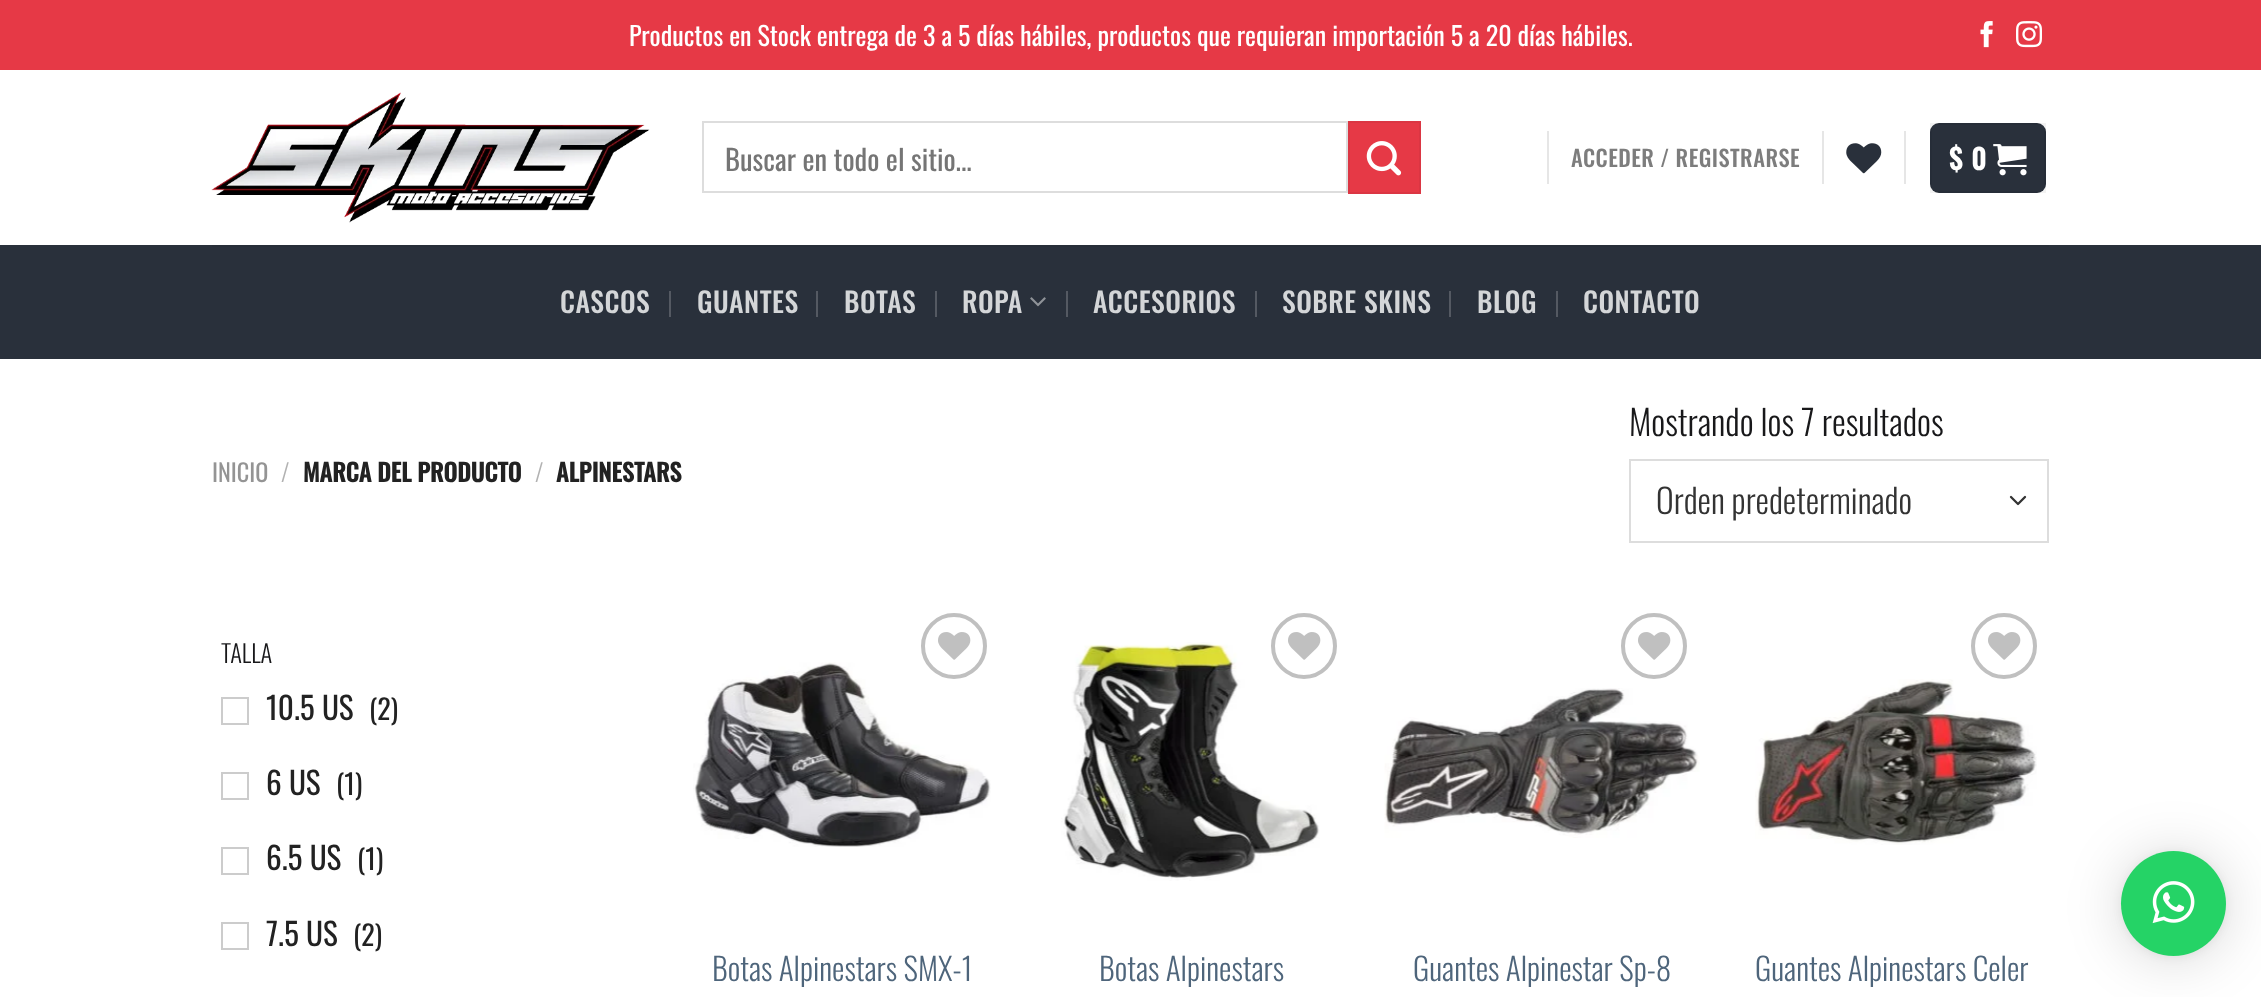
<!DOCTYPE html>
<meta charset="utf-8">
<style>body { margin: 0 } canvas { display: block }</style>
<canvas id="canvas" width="2261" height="997"></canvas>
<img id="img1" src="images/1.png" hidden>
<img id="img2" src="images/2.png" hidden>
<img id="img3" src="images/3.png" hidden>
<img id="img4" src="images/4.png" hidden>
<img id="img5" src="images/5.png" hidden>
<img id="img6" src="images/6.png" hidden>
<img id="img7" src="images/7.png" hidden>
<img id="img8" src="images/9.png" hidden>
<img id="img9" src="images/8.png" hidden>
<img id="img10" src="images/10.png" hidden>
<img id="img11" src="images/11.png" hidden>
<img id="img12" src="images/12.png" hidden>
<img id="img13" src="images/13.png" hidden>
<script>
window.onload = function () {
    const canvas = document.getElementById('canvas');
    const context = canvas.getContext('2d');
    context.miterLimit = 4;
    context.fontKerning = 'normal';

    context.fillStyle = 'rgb(255, 255, 255)';
    context.fillRect(0, 0, 2261, 997);
    context.fillStyle = 'rgb(230, 57, 70)';
    context.fillRect(0, 0, 2261, 70);
    context.drawImage(document.getElementById('img1'), 1980, 21, 13, 27);
    context.drawImage(document.getElementById('img2'), 2016, 21, 26, 27);
    context.drawImage(document.getElementById('img3'), 211, 92, 439, 131);
    context.strokeStyle = 'rgb(221, 221, 221)';
    context.lineWidth = 2;
    context.strokeRect(703, 122, 644, 70);
    context.beginPath();
    context.rect(1349, 122, 71, 71);
    context.fill();
    context.strokeStyle = 'rgb(219, 54, 67)';
    context.stroke();
    context.drawImage(document.getElementById('img4'), 1366, 141, 36, 35);
    context.fillStyle = 'rgb(230, 230, 230)';
    context.fillRect(1547, 131, 2, 53);
    context.fillRect(1822, 131, 2, 53);
    context.drawImage(document.getElementById('img5'), 1846, 143, 36, 31);
    context.fillRect(1904, 131, 2, 53);
    context.fillStyle = 'rgb(41, 48, 59)';
    context.beginPath();
    context.roundRect(1930, 123, 116, 70, 9);
    context.fill();
    context.strokeStyle = 'rgba(0, 0, 0, 0.05)';
    context.strokeRect(1931, 124, 114, 68);
    context.drawImage(document.getElementById('img6'), 1993, 144, 34, 32);
    context.fillRect(0, 245, 2261, 114);
    context.fillStyle = 'rgb(39, 46, 56)';
    context.fillRect(212, 245, 1837, 2);
    context.fillStyle = 'rgb(84, 89, 98)';
    context.fillRect(669, 291, 2, 26);
    context.fillRect(816, 291, 2, 26);
    context.fillRect(935, 291, 2, 26);
    context.drawImage(document.getElementById('img7'), 1030, 297, 16, 10);
    context.fillRect(1066, 291, 2, 26);
    context.fillRect(1255, 291, 2, 26);
    context.fillRect(1449, 291, 2, 26);
    context.fillRect(1556, 291, 2, 26);
    context.beginPath();
    context.moveTo(2011, 497);
    context.lineTo(2018, 504);
    context.lineTo(2025, 497);
    context.strokeStyle = 'rgb(51, 51, 51)';
    context.lineWidth = 2.3;
    context.lineCap = 'round';
    context.lineJoin = 'round';
    context.stroke();
    context.strokeStyle = 'rgb(221, 221, 221)';
    context.lineWidth = 2;
    context.lineJoin = 'miter';
    context.strokeRect(1630, 460, 418, 82);
    context.strokeStyle = 'rgb(204, 204, 204)';
    context.strokeRect(222, 698, 26, 26);
    context.strokeRect(222, 773, 26, 26);
    context.strokeRect(222, 848, 26, 26);
    context.strokeRect(222, 923, 26, 26);
    context.drawImage(document.getElementById('img8'), 693, 662, 298, 185);
    context.beginPath();
    context.arc(954, 646, 31, 0, 2 * Math.PI);
    context.strokeStyle = 'rgb(192, 192, 192)';
    context.lineWidth = 4;
    context.stroke();
    context.drawImage(document.getElementById('img9'), 938, 632, 33, 28);
    context.drawImage(document.getElementById('img10'), 1061, 642, 259, 239);
    context.beginPath();
    context.arc(1304, 646, 31, 0, 2 * Math.PI);
    context.stroke();
    context.drawImage(document.getElementById('img9'), 1288, 632, 33, 28);
    context.beginPath();
    context.arc(1654, 646, 31, 0, 2 * Math.PI);
    context.stroke();
    context.drawImage(document.getElementById('img9'), 1638, 632, 33, 28);
    context.drawImage(document.getElementById('img11'), 1384, 688, 316, 150);
    context.beginPath();
    context.arc(2004, 646, 31, 0, 2 * Math.PI);
    context.stroke();
    context.drawImage(document.getElementById('img9'), 1988, 632, 33, 28);
    context.drawImage(document.getElementById('img12'), 1755, 679, 282, 166);
    context.fillStyle = 'rgba(0, 0, 0, 0.16)';
    context.filter = 'blur(28px)';
    context.beginPath();
    context.roundRect(2121, 854, 105, 105, 52.5);
    context.fill();
    context.filter = 'none';
    context.fillStyle = 'rgba(0, 0, 0, 0.06)';
    context.filter = 'blur(5px)';
    context.beginPath();
    context.roundRect(2121, 852, 105, 105, 52.5);
    context.fill();
    context.filter = 'none';
    context.fillStyle = 'rgb(37, 211, 102)';
    context.beginPath();
    context.arc(2173.5, 903.5, 52.5, 0, 2 * Math.PI);
    context.fill();
    context.drawImage(document.getElementById('img13'), 2152, 881, 43, 43);
    context.font = '26.05px Oswald';
    context.fillStyle = 'rgb(255, 255, 255)';
    context.fillText('Productos en Stock entrega de 3 a 5 días hábiles, productos que requieran importación 5 a 20 días hábiles.', 629, 46);
    context.font = '28.6px Oswald';
    context.fillStyle = 'rgb(117, 117, 117)';
    context.fillText('Buscar en todo el sitio...', 725, 171);
    context.letterSpacing = '0.45px';
    context.font = '500 22.5px Oswald';
    context.fillStyle = 'rgb(125, 125, 125)';
    context.fillText('ACCEDER / REGISTRARSE', 1571, 167);
    context.letterSpacing = '1px';
    context.font = 'bold 27.75px Oswald';
    context.fillStyle = 'rgb(255, 255, 255)';
    context.fillText('$ 0', 1949, 170);
    context.letterSpacing = '0.5px';
    context.font = '500 27.75px Oswald';
    context.fillStyle = 'rgb(212, 214, 216)';
    context.fillText('CASCOS', 560, 313);
    context.fillText('GUANTES', 697, 313);
    context.fillText('BOTAS', 844, 313);
    context.fillText('ROPA', 962, 313);
    context.fillText('ACCESORIOS', 1093, 313);
    context.fillText('SOBRE SKINS', 1282, 313);
    context.fillText('BLOG', 1477, 313);
    context.fillText('CONTACTO', 1583, 313);
    context.letterSpacing = '0px';
    context.font = '24.25px Oswald';
    context.fillStyle = 'rgb(148, 148, 148)';
    context.fillText('INICIO', 212, 482);
    context.font = '300 24.25px Oswald';
    context.fillStyle = 'rgb(178, 178, 178)';
    context.fillText('/', 281, 482);
    context.font = 'bold 24.25px Oswald';
    context.fillStyle = 'rgb(34, 34, 34)';
    context.fillText('MARCA DEL PRODUCTO', 303, 482);
    context.font = '300 24.25px Oswald';
    context.fillStyle = 'rgb(178, 178, 178)';
    context.fillText('/', 535, 482);
    context.font = 'bold 24.25px Oswald';
    context.fillStyle = 'rgb(34, 34, 34)';
    context.fillText('ALPINESTARS', 556, 482);
    context.font = '300 34.75px Oswald';
    context.fillStyle = 'rgb(24, 24, 26)';
    context.fillText('Mostrando los 7 resultados', 1629, 436);
    context.font = '300 33.75px Oswald';
    context.fillStyle = 'rgb(51, 51, 51)';
    context.fillText('Orden predeterminado', 1656, 514);
    context.font = '300 24.5px Oswald';
    context.fillStyle = 'rgb(24, 24, 26)';
    context.fillText('TALLA', 221, 663);
    context.font = '31.25px Oswald';
    context.fillStyle = 'rgb(34, 34, 34)';
    context.fillText('10.5 US', 266, 720);
    context.font = '28px Oswald';
    context.fillText('(2)', 369, 720);
    context.font = '31.25px Oswald';
    context.fillText('6 US', 266, 795);
    context.font = '28px Oswald';
    context.fillText('(1)', 336, 795);
    context.font = '31.25px Oswald';
    context.fillText('6.5 US', 266, 870);
    context.font = '28px Oswald';
    context.fillText('(1)', 357, 870);
    context.font = '31.25px Oswald';
    context.fillText('7.5 US', 266, 946);
    context.font = '28px Oswald';
    context.fillText('(2)', 353, 946);
    context.font = '300 31.25px Oswald';
    context.fillStyle = 'rgb(78, 101, 123)';
    context.fillText('Botas Alpinestars SMX-1', 712, 981);
    context.fillText('Botas Alpinestars', 1099, 981);
    context.fillText('Guantes Alpinestar Sp-8', 1413, 981);
    context.fillText('Guantes Alpinestars Celer', 1755, 981);
};
</script>
